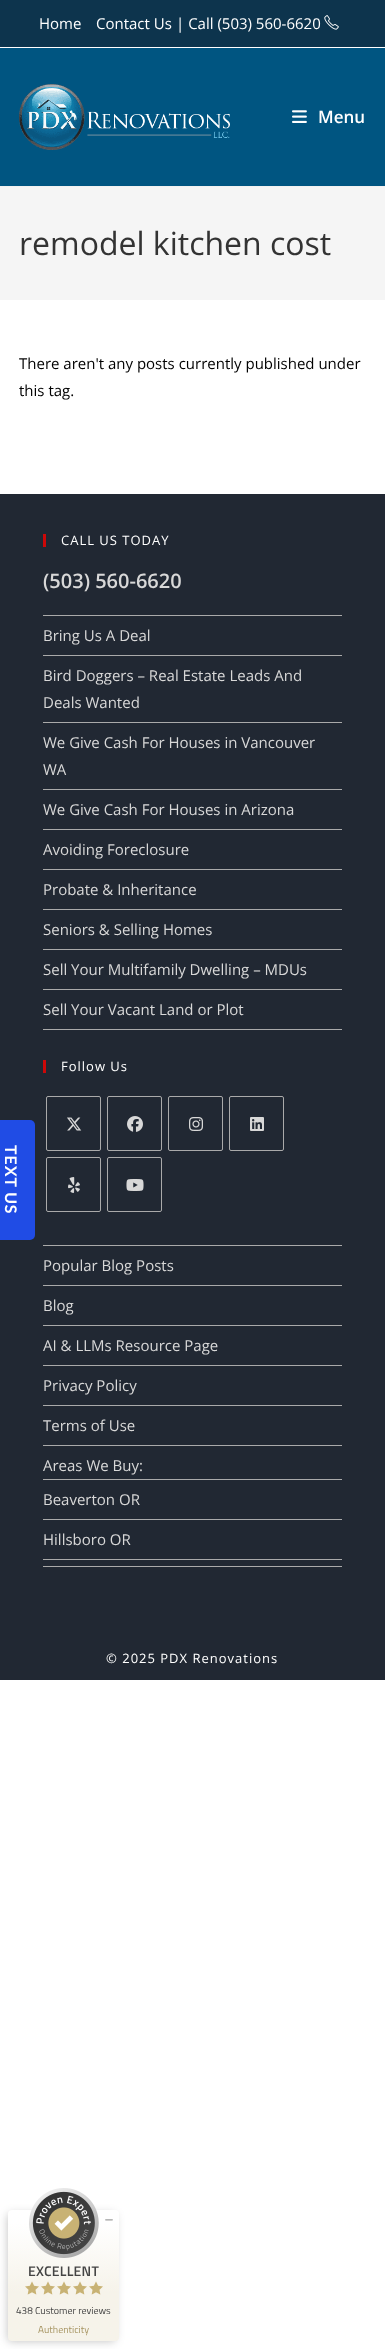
<!DOCTYPE html>
<meta charset="utf-8">
<style>body { margin: 0 } canvas { display: block }</style>
<canvas id="canvas" width="385" height="2349"></canvas>
<img id="img1" src="images/1.png" hidden>
<img id="img2" src="images/2.png" hidden>
<img id="img3" src="images/3.png" hidden>
<img id="img4" src="images/4.png" hidden>
<img id="img5" src="images/5.png" hidden>
<img id="img6" src="images/6.png" hidden>
<img id="img7" src="images/7.png" hidden>
<img id="img8" src="images/8.png" hidden>
<img id="img9" src="images/9.png" hidden>
<img id="img10" src="images/10.png" hidden>
<img id="img11" src="images/11.png" hidden>
<img id="img12" src="images/12.png" hidden>
<script>
window.onload = function () {
    const canvas = document.getElementById('canvas');
    const context = canvas.getContext('2d');
    context.miterLimit = 4;
    context.fontKerning = 'normal';
    let gradient;

    context.fillStyle = 'rgb(255, 255, 255)';
    context.fillRect(0, 0, 385, 2349);
    context.fillStyle = 'rgb(33, 40, 51)';
    context.fillRect(0, 494, 385, 1186);
    context.fillStyle = 'rgb(32, 76, 229)';
    context.beginPath();
    context.roundRect(0, 1120, 35, 120, [0, 5, 5, 0]);
    context.fill();
    context.fillStyle = 'rgb(13, 52, 77)';
    context.fillRect(0, 0, 385, 47);
    context.drawImage(document.getElementById('img1'), 324, 15, 15, 15);
    context.fillStyle = 'rgb(0, 85, 129)';
    context.fillRect(0, 48, 385, 138);
    context.fillStyle = 'rgb(241, 241, 241)';
    context.fillRect(0, 186, 385, 1);
    context.drawImage(document.getElementById('img2'), 19, 84, 211, 66);
    context.drawImage(document.getElementById('img3'), 292, 110, 15, 13);
    context.fillStyle = 'rgb(245, 245, 245)';
    context.fillRect(0, 187, 385, 113);
    context.fillStyle = 'rgb(205, 8, 8)';
    context.fillRect(43, 534, 3, 13);
    context.fillStyle = 'rgb(170, 170, 170)';
    context.fillRect(43, 615, 299, 1);
    context.fillRect(43, 655, 299, 1);
    context.fillRect(43, 722, 299, 1);
    context.fillRect(43, 789, 299, 1);
    context.fillRect(43, 829, 299, 1);
    context.fillRect(43, 869, 299, 1);
    context.fillRect(43, 909, 299, 1);
    context.fillRect(43, 949, 299, 1);
    context.fillRect(43, 989, 299, 1);
    context.fillRect(43, 1029, 299, 1);
    context.fillStyle = 'rgb(205, 8, 8)';
    context.fillRect(43, 1060, 3, 13);
    context.beginPath();
    context.roundRect(46.5, 1096.5, 54, 54, 1.5);
    context.strokeStyle = 'rgb(170, 170, 170)';
    context.stroke();
    context.drawImage(document.getElementById('img4'), 67, 1117, 15, 14);
    context.beginPath();
    context.roundRect(107.5, 1096.5, 54, 54, 1.5);
    context.stroke();
    context.drawImage(document.getElementById('img5'), 127, 1116, 16, 16);
    context.beginPath();
    context.roundRect(168.5, 1096.5, 54, 54, 1.5);
    context.stroke();
    context.drawImage(document.getElementById('img6'), 189, 1117, 14, 14);
    context.beginPath();
    context.roundRect(229.5, 1096.5, 54, 54, 1.5);
    context.stroke();
    context.drawImage(document.getElementById('img7'), 250, 1117, 14, 14);
    context.beginPath();
    context.roundRect(46.5, 1157.5, 54, 54, 1.5);
    context.stroke();
    context.drawImage(document.getElementById('img8'), 68, 1177, 12, 16);
    context.beginPath();
    context.roundRect(107.5, 1157.5, 54, 54, 1.5);
    context.stroke();
    context.drawImage(document.getElementById('img9'), 126, 1179, 18, 12);
    context.fillStyle = 'rgb(170, 170, 170)';
    context.fillRect(43, 1245, 299, 1);
    context.fillRect(43, 1285, 299, 1);
    context.fillRect(43, 1325, 299, 1);
    context.fillRect(43, 1365, 299, 1);
    context.fillRect(43, 1405, 299, 1);
    context.fillRect(43, 1445, 299, 1);
    context.fillRect(43, 1566, 299, 1);
    context.fillRect(43, 1479, 299, 1);
    context.fillRect(43, 1519, 299, 1);
    context.fillRect(43, 1559, 299, 1);
    context.fillStyle = 'rgba(0, 0, 0, 0.25)';
    context.filter = 'blur(5px)';
    context.beginPath();
    context.roundRect(8, 2214, 107, 127, 2);
    context.fill();
    context.filter = 'none';
    gradient = context.createLinearGradient(64, 2341, 64, 2210);
    gradient.addColorStop(0.37, 'rgb(246, 243, 234)');
    gradient.addColorStop(0.9, 'rgb(255, 255, 255)');
    context.fillStyle = gradient;
    context.beginPath();
    context.roundRect(8, 2210, 111, 131, 4);
    context.fill();
    context.drawImage(document.getElementById('img10'), 29, 2188, 70, 70);
    context.drawImage(document.getElementById('img11'), 105, 2219, 8, 2);
    context.drawImage(document.getElementById('img12'), 25, 2281, 14, 14);
    context.drawImage(document.getElementById('img12'), 41, 2281, 14, 14);
    context.drawImage(document.getElementById('img12'), 57, 2281, 14, 14);
    context.drawImage(document.getElementById('img12'), 73, 2281, 14, 14);
    context.drawImage(document.getElementById('img12'), 89, 2281, 14, 14);
    context.letterSpacing = '1px';
    context.font = 'bold 16px Lato';
    context.fillStyle = 'rgb(255, 255, 255)';
    context.save();
    context.translate(5, 1145);
    context.rotate(90 * Math.PI / 180);
    context.fillText('TEXT US', 0, 0);
    context.restore();
    context.letterSpacing = '0px';
    context.font = '15px Open Sans';
    context.fillText('Home', 39, 29);
    context.fillText('Contact Us', 96, 29);
    context.fillText('| Call (503) 560-6620', 176, 29);
    context.font = '600 17px Open Sans';
    context.fillText('Menu', 318, 123);
    context.font = '32px Open Sans';
    context.fillStyle = 'rgb(51, 51, 51)';
    context.fillText('remodel kitchen cost', 19, 255);
    context.font = '15px Open Sans';
    context.fillStyle = 'rgb(0, 0, 0)';
    context.fillText('There aren\'t any posts currently published under', 19, 369);
    context.fillText('this tag.', 19, 396);
    context.letterSpacing = '1px';
    context.font = '13px Open Sans';
    context.fillStyle = 'rgb(255, 255, 255)';
    context.fillText('CALL US TODAY', 61, 545);
    context.letterSpacing = '0px';
    context.font = '600 20px Open Sans';
    context.fillStyle = 'rgb(216, 216, 216)';
    context.fillText('(503) 560-6620', 43, 588);
    context.font = '15px Open Sans';
    context.fillText('Bring Us A Deal', 43, 641);
    context.fillText('Bird Doggers – Real Estate Leads And', 43, 681);
    context.fillText('Deals Wanted', 43, 708);
    context.fillText('We Give Cash For Houses in Vancouver', 43, 748);
    context.fillText('WA', 43, 775);
    context.fillText('We Give Cash For Houses in Arizona', 43, 815);
    context.fillText('Avoiding Foreclosure', 43, 855);
    context.fillText('Probate & Inheritance', 43, 895);
    context.fillText('Seniors & Selling Homes', 43, 935);
    context.fillText('Sell Your Multifamily Dwelling – MDUs', 43, 975);
    context.fillText('Sell Your Vacant Land or Plot', 43, 1015);
    context.letterSpacing = '1px';
    context.font = '13px Open Sans';
    context.fillStyle = 'rgb(255, 255, 255)';
    context.fillText('Follow Us', 61, 1071);
    context.letterSpacing = '0px';
    context.font = '15px Open Sans';
    context.fillStyle = 'rgb(216, 216, 216)';
    context.fillText('Popular Blog Posts', 43, 1271);
    context.fillText('Blog', 43, 1311);
    context.fillText('AI & LLMs Resource Page', 43, 1351);
    context.fillText('Privacy Policy', 43, 1391);
    context.fillText('Terms of Use', 43, 1431);
    context.fillText('Areas We Buy:', 43, 1471);
    context.fillText('Beaverton OR', 43, 1505);
    context.fillText('Hillsboro OR', 43, 1545);
    context.letterSpacing = '1px';
    context.font = '13px Open Sans';
    context.fillStyle = 'rgb(255, 255, 255)';
    context.fillText('© 2025 PDX Renovations', 106, 1663);
    context.letterSpacing = '0.25px';
    context.font = '600 14px Titillium Web';
    context.fillStyle = 'rgb(68, 68, 68)';
    context.fillText('EXCELLENT', 28, 2276);
    context.letterSpacing = '0px';
    context.font = '10px Titillium Web';
    context.fillText('438 Customer reviews', 16, 2314);
    context.fillStyle = 'rgb(167, 149, 99)';
    context.fillText('Authenticity', 38, 2333);
};
</script>
